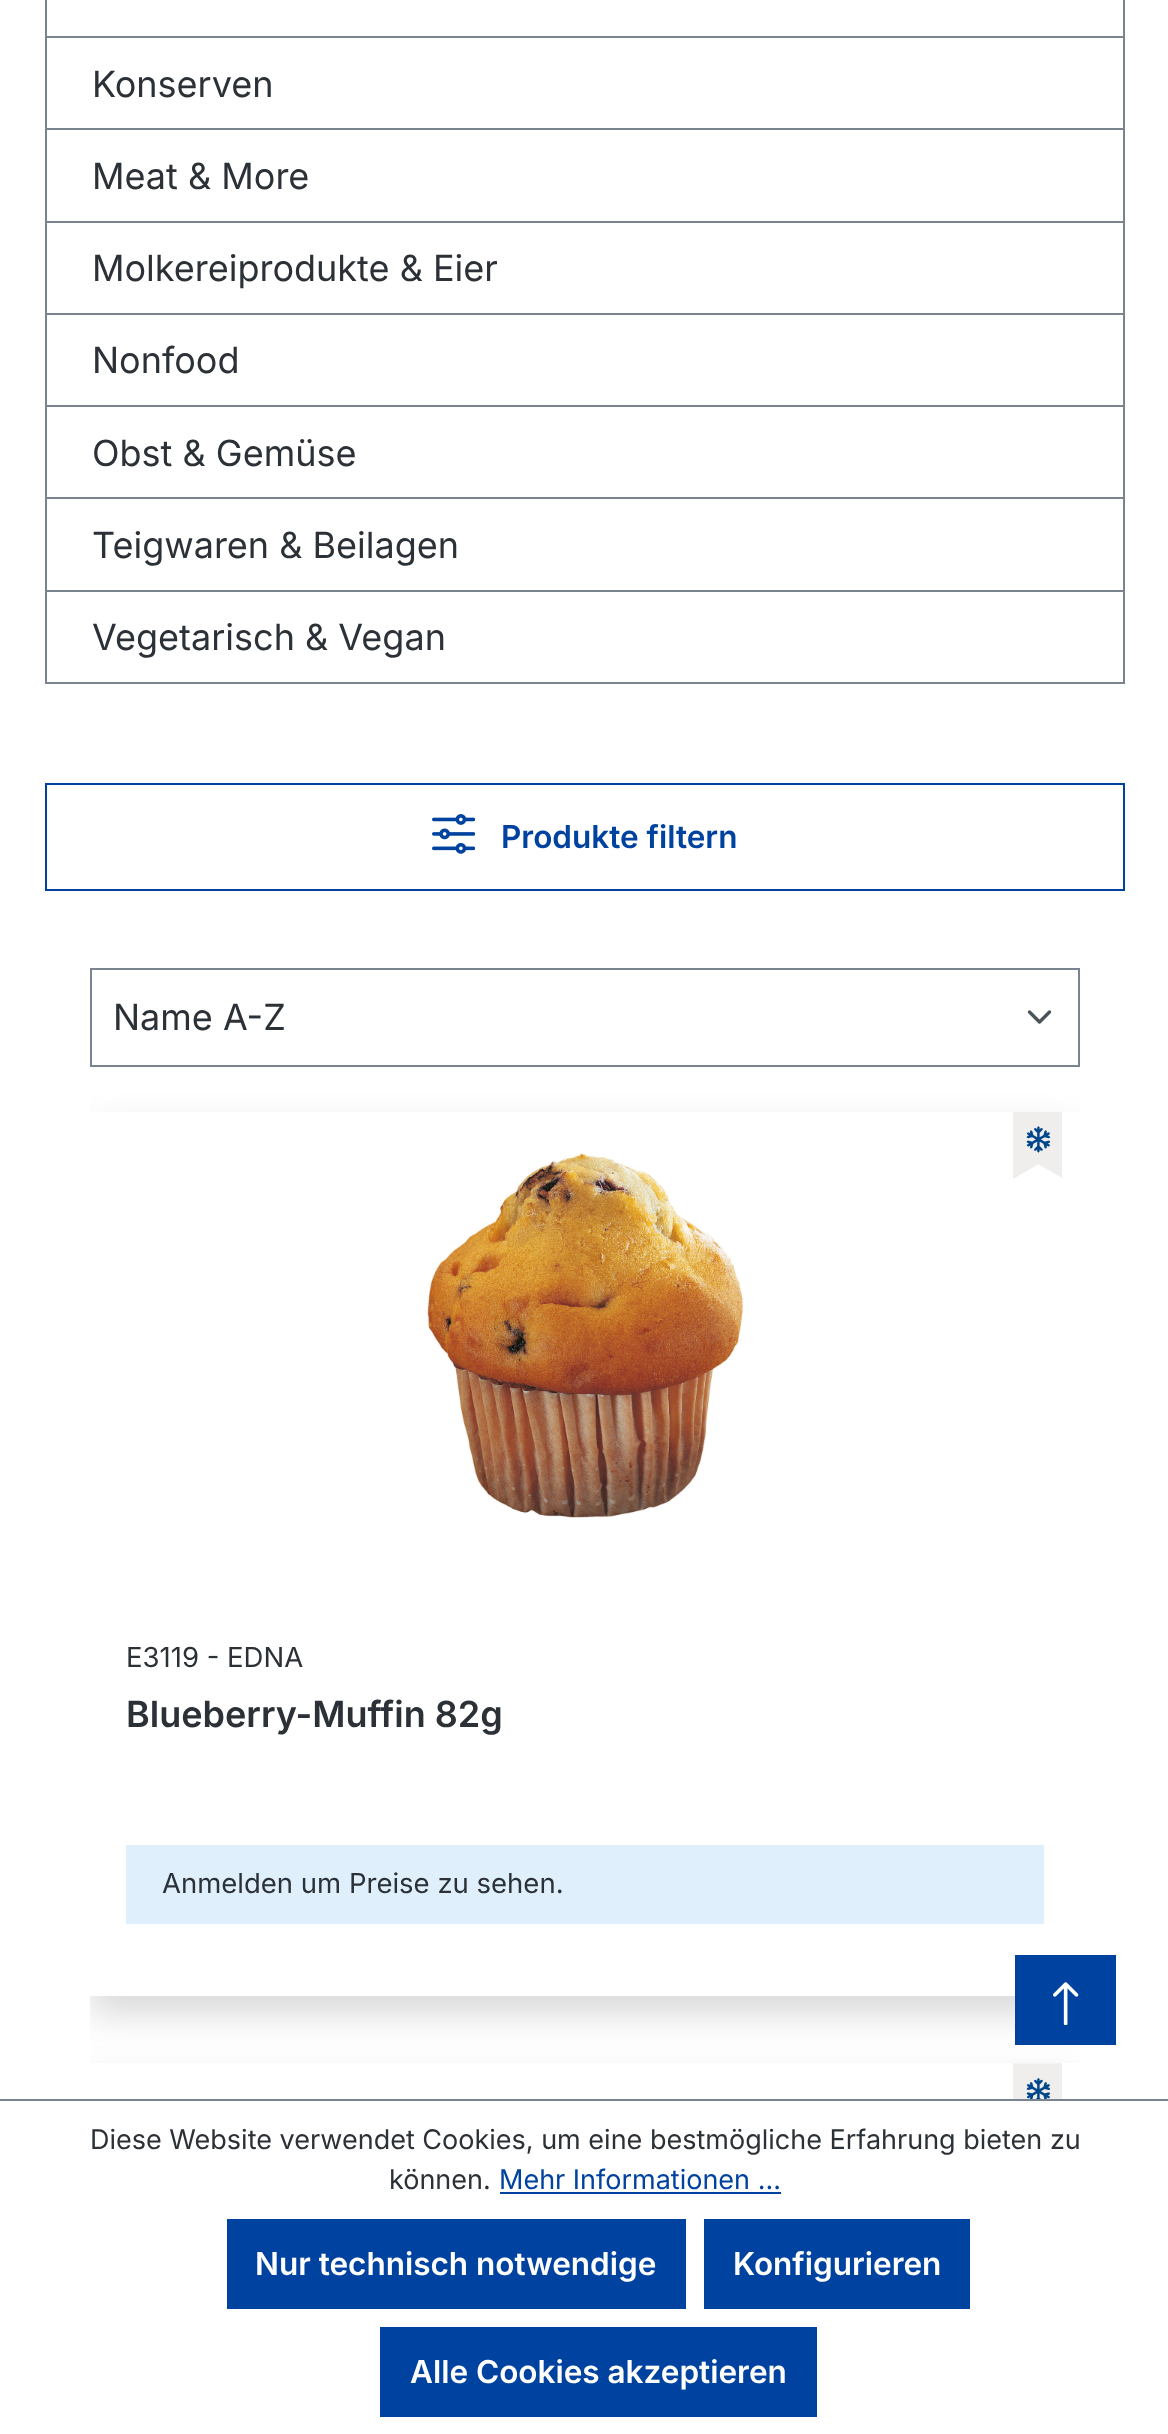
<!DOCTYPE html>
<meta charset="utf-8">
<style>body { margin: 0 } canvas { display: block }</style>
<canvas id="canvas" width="1168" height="2434"></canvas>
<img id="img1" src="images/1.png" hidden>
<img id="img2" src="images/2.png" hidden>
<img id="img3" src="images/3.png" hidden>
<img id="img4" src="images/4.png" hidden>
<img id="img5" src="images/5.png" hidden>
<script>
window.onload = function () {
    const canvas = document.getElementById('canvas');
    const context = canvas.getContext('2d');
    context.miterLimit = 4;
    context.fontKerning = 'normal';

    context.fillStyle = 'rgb(255, 255, 255)';
    context.fillRect(0, 0, 1168, 2434);
    context.strokeStyle = 'rgb(121, 132, 144)';
    context.lineWidth = 2;
    context.strokeRect(46, -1, 1078, 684);
    context.fillStyle = 'rgb(121, 132, 144)';
    context.fillRect(47, 36, 1076, 2);
    context.fillRect(47, 128, 1076, 2);
    context.fillRect(47, 221, 1076, 2);
    context.fillRect(47, 313, 1076, 2);
    context.fillRect(47, 405, 1076, 2);
    context.fillRect(47, 497, 1076, 2);
    context.fillRect(47, 590, 1076, 2);
    context.strokeStyle = 'rgb(0, 66, 160)';
    context.strokeRect(46, 784, 1078, 106);
    context.drawImage(document.getElementById('img1'), 432, 814, 43, 40);
    context.beginPath();
    context.moveTo(1029.5, 1012);
    context.lineTo(1039.5, 1022);
    context.lineTo(1049.5, 1012);
    context.strokeStyle = 'rgb(74, 84, 91)';
    context.lineWidth = 3.4;
    context.lineCap = 'round';
    context.lineJoin = 'round';
    context.stroke();
    context.strokeStyle = 'rgb(121, 132, 144)';
    context.lineWidth = 2;
    context.lineJoin = 'miter';
    context.strokeRect(91, 969, 988, 97);
    context.save();
    context.beginPath();
    context.rect(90, 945, 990, 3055);
    context.clip();
    context.fillStyle = 'rgba(0, 0, 0, 0.15)';
    context.filter = 'blur(18px)';
    context.beginPath();
    context.rect(90, 1130, 990, 884);
    context.fill();
    context.filter = 'none';
    context.restore();
    context.fillStyle = 'rgb(255, 255, 255)';
    context.fillRect(90, 1112, 990, 884);
    context.drawImage(document.getElementById('img2'), 1013, 1112, 49, 67);
    context.drawImage(document.getElementById('img3'), 427, 1153, 317, 365);
    context.fillStyle = 'rgb(223, 240, 252)';
    context.fillRect(126, 1845, 918, 79);
    context.save();
    context.beginPath();
    context.rect(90, 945, 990, 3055);
    context.clip();
    context.fillStyle = 'rgba(0, 0, 0, 0.15)';
    context.filter = 'blur(18px)';
    context.beginPath();
    context.rect(90, 2081, 990, 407);
    context.fill();
    context.filter = 'none';
    context.restore();
    context.fillStyle = 'rgb(255, 255, 255)';
    context.fillRect(90, 2063, 990, 36);
    context.drawImage(document.getElementById('img4'), 1013, 2063, 49, 36);
    context.fillStyle = 'rgb(0, 66, 160)';
    context.fillRect(1015, 1955, 101, 90);
    context.drawImage(document.getElementById('img5'), 1053, 1982, 26, 43);
    context.fillStyle = 'rgb(255, 255, 255)';
    context.fillRect(90, 2101, 990, 333);
    context.fillStyle = 'rgb(121, 132, 144)';
    context.fillRect(0, 2099, 1168, 2);
    context.fillStyle = 'rgb(0, 66, 160)';
    context.fillRect(500, 2192, 281, 2);
    context.fillRect(227, 2219, 459, 90);
    context.fillRect(704, 2219, 266, 90);
    context.fillRect(380, 2327, 437, 90);
    context.font = '36px Inter';
    context.fillStyle = 'rgb(43, 49, 54)';
    context.fillText('Konserven', 92, 97);
    context.fillText('Meat & More', 92, 189);
    context.fillText('Molkereiprodukte & Eier', 92, 281);
    context.fillText('Nonfood', 92, 373);
    context.fillText('Obst & Gemüse', 92, 466);
    context.fillText('Teigwaren & Beilagen', 92, 558);
    context.fillText('Vegetarisch & Vegan', 92, 650);
    context.font = '600 31.5px Inter';
    context.fillStyle = 'rgb(0, 66, 160)';
    context.fillText('Produkte filtern', 501, 848);
    context.font = '36px Inter';
    context.fillStyle = 'rgb(43, 49, 54)';
    context.fillText('Name A-Z', 113, 1030);
    context.font = '27.5px Inter';
    context.fillText('E3119 - EDNA', 126, 1667);
    context.font = '600 36px Inter';
    context.fillText('Blueberry-Muffin 82g', 126, 1727);
    context.font = '27.5px Inter';
    context.fillText('Anmelden um Preise zu sehen.', 162, 1893);
    context.font = '27px Inter';
    context.fillText('Diese Website verwendet Cookies, um eine bestmögliche Erfahrung bieten zu', 90, 2149);
    context.fillText('können.', 389, 2189);
    context.fillStyle = 'rgb(0, 66, 160)';
    context.fillText('Mehr Informationen ...', 499, 2189);
    context.font = '600 31.5px Inter';
    context.fillStyle = 'rgb(255, 255, 255)';
    context.fillText('Nur technisch notwendige', 255, 2275);
    context.fillText('Konfigurieren', 733, 2275);
    context.fillText('Alle Cookies akzeptieren', 410, 2383);
};
</script>
